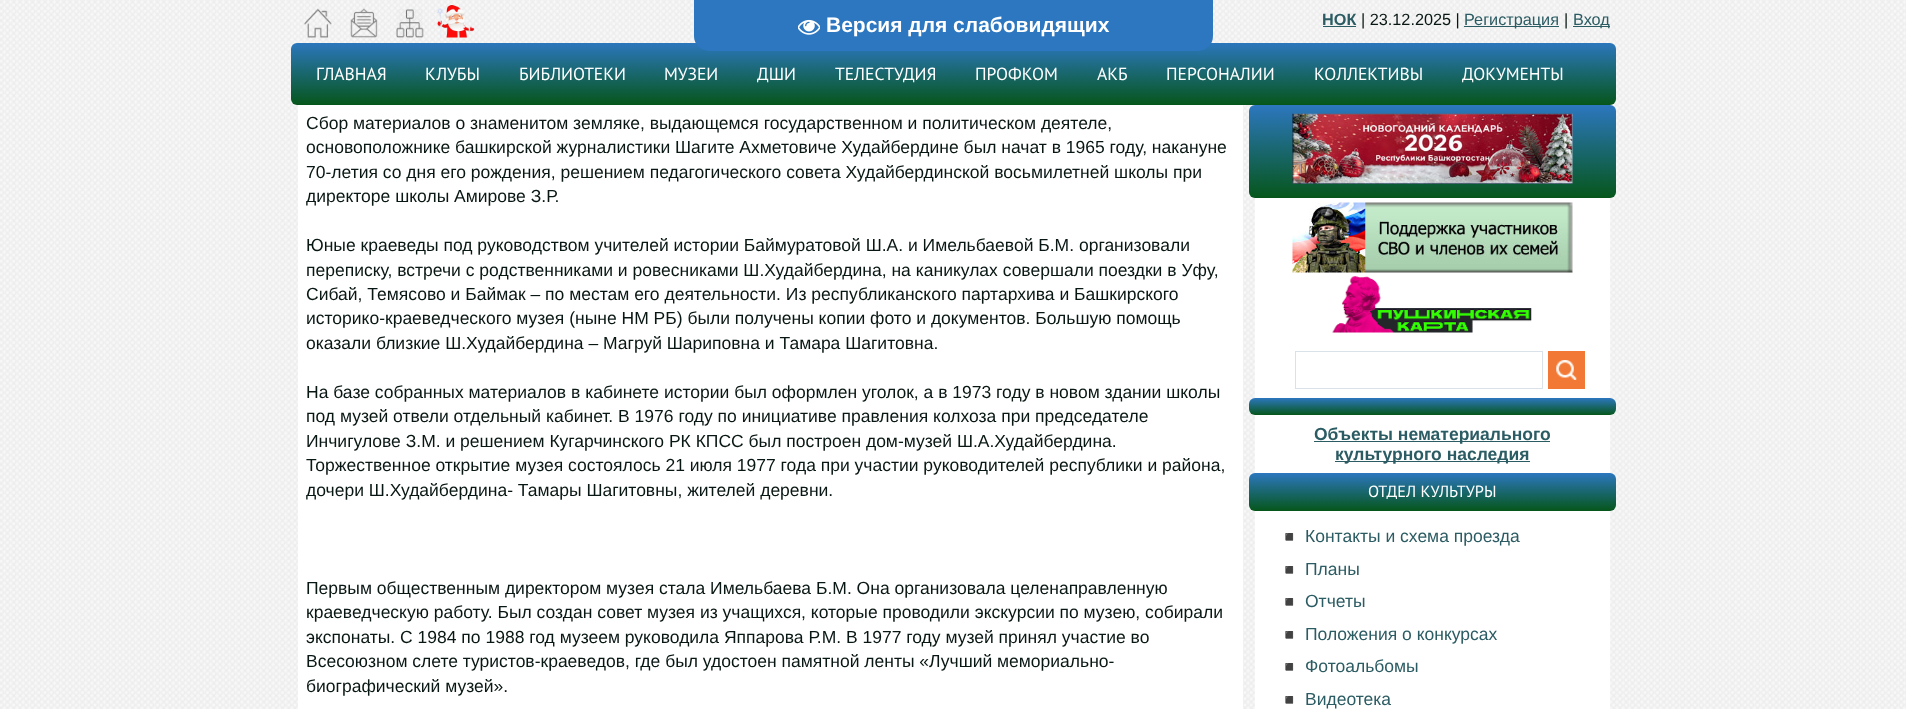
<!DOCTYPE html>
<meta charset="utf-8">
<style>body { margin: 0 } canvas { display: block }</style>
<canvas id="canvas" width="1906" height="709"></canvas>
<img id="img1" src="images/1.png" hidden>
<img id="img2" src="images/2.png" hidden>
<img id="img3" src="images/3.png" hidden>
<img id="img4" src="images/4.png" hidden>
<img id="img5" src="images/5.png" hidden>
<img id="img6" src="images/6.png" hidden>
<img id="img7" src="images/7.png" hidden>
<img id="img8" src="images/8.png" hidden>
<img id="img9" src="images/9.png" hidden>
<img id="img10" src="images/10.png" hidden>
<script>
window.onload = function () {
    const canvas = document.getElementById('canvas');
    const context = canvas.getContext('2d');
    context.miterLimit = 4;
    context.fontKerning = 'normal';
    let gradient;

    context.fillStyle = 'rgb(255, 255, 255)';
    context.fillRect(0, 0, 1906, 709);
    context.drawImage(document.getElementById('img1'), 0, 0, 1906, 709);
    context.drawImage(document.getElementById('img2'), 304, 8, 28, 30);
    context.drawImage(document.getElementById('img3'), 350, 8, 28, 30);
    context.drawImage(document.getElementById('img4'), 396, 9, 28, 29);
    context.drawImage(document.getElementById('img5'), 437, 5, 38, 33);
    context.fillStyle = 'rgb(44, 92, 99)';
    context.fillRect(1323, 26, 33, 1);
    context.fillRect(1464, 26, 95, 1);
    context.fillRect(1573, 26, 37, 1);
    gradient = context.createLinearGradient(954, 42, 954, 105);
    gradient.addColorStop(0, 'rgb(44, 119, 191)');
    gradient.addColorStop(1, 'rgb(6, 86, 27)');
    context.fillStyle = gradient;
    context.beginPath();
    context.roundRect(291, 43, 1325, 62, 6);
    context.fill();
    context.fillStyle = 'rgb(44, 119, 191)';
    context.beginPath();
    context.roundRect(694, 0, 519, 51, [0, 0, 15, 15]);
    context.fill();
    context.drawImage(document.getElementById('img6'), 798, 19, 22, 16);
    context.fillStyle = 'rgb(255, 255, 255)';
    context.fillRect(298, 105, 945, 604);
    context.fillRect(1255, 198, 355, 511);
    gradient = context.createLinearGradient(1433, 105, 1433, 198);
    gradient.addColorStop(0, 'rgb(44, 119, 191)');
    gradient.addColorStop(1, 'rgb(6, 86, 27)');
    context.fillStyle = gradient;
    context.beginPath();
    context.roundRect(1249, 105, 367, 93, 6);
    context.fill();
    context.drawImage(document.getElementById('img7'), 1292, 113, 281, 71);
    context.drawImage(document.getElementById('img8'), 1292, 202, 281, 71);
    context.drawImage(document.getElementById('img9'), 1332, 276, 200, 57);
    context.strokeStyle = 'rgb(219, 225, 232)';
    context.strokeRect(1295.5, 351.5, 247, 37);
    context.fillStyle = 'rgb(242, 121, 53)';
    context.fillRect(1548, 351, 37, 38);
    context.drawImage(document.getElementById('img10'), 1556, 360, 21, 20);
    gradient = context.createLinearGradient(1433, 398, 1433, 415);
    gradient.addColorStop(0, 'rgb(44, 119, 191)');
    gradient.addColorStop(1, 'rgb(6, 86, 27)');
    context.fillStyle = gradient;
    context.beginPath();
    context.roundRect(1249, 398, 367, 17, 6);
    context.fill();
    context.fillStyle = 'rgb(44, 92, 99)';
    context.fillRect(1314, 441, 236, 1);
    context.fillRect(1335, 461, 195, 1);
    gradient = context.createLinearGradient(1433, 473, 1433, 511);
    gradient.addColorStop(0, 'rgb(44, 119, 191)');
    gradient.addColorStop(1, 'rgb(6, 86, 27)');
    context.fillStyle = gradient;
    context.beginPath();
    context.roundRect(1249, 473, 367, 38, 6);
    context.fill();
    context.font = 'bold 16.25px Liberation Sans';
    context.fillStyle = 'rgb(44, 92, 99)';
    context.fillText('НОК', 1322, 25);
    context.font = '16.25px Liberation Sans';
    context.fillStyle = 'rgb(9, 23, 20)';
    context.fillText('| 23.12.2025 |', 1361, 25);
    context.fillStyle = 'rgb(44, 92, 99)';
    context.fillText('Регистрация', 1464, 25);
    context.fillStyle = 'rgb(9, 23, 20)';
    context.fillText('|', 1564, 25);
    context.fillStyle = 'rgb(44, 92, 99)';
    context.fillText('Вход', 1573, 25);
    context.font = '17.5px PT Sans';
    context.fillStyle = 'rgb(255, 255, 255)';
    context.fillText('ГЛАВНАЯ', 316, 80);
    context.fillText('КЛУБЫ', 425, 80);
    context.fillText('БИБЛИОТЕКИ', 519, 80);
    context.fillText('МУЗЕИ', 664, 80);
    context.fillText('ДШИ', 757, 80);
    context.fillText('ТЕЛЕСТУДИЯ', 835, 80);
    context.fillText('ПРОФКОМ', 975, 80);
    context.fillText('АКБ', 1097, 80);
    context.fillText('ПЕРСОНАЛИИ', 1166, 80);
    context.fillText('КОЛЛЕКТИВЫ', 1314, 80);
    context.fillText('ДОКУМЕНТЫ', 1462, 80);
    context.font = 'bold 21px Liberation Sans';
    context.fillText('Версия для слабовидящих', 826, 32);
    context.font = '17.5px Liberation Sans';
    context.fillStyle = 'rgb(9, 23, 20)';
    context.fillText('Сбор материалов о знаменитом земляке, выдающемся государственном и политическом деятеле,', 306, 129);
    context.fillText('основоположнике башкирской журналистики Шагите Ахметовиче Худайбердине был начат в 1965 году, накануне', 306, 153);
    context.fillText('70-летия со дня его рождения, решением педагогического совета Худайбердинской восьмилетней школы при', 306, 178);
    context.fillText('директоре школы Амирове З.Р.', 306, 202);
    context.fillText('Юные краеведы под руководством учителей истории Баймуратовой Ш.А. и Имельбаевой Б.М. организовали', 306, 251);
    context.fillText('переписку, встречи с родственниками и ровесниками Ш.Худайбердина, на каникулах совершали поездки в Уфу,', 306, 276);
    context.fillText('Сибай, Темясово и Баймак – по местам его деятельности. Из республиканского партархива и Башкирского', 306, 300);
    context.fillText('историко-краеведческого музея (ныне НМ РБ) были получены копии фото и документов. Большую помощь', 306, 324);
    context.fillText('оказали близкие Ш.Худайбердина – Магруй Шариповна и Тамара Шагитовна.', 306, 349);
    context.fillText('На базе собранных материалов в кабинете истории был оформлен уголок, а в 1973 году в новом здании школы', 306, 398);
    context.fillText('под музей отвели отдельный кабинет. В 1976 году по инициативе правления колхоза при председателе', 306, 422);
    context.fillText('Инчигулове З.М. и решением Кугарчинского РК КПСС был построен дом-музей Ш.А.Худайбердина.', 306, 447);
    context.fillText('Торжественное открытие музея состоялось 21 июля 1977 года при участии руководителей республики и района,', 306, 471);
    context.fillText('дочери Ш.Худайбердина- Тамары Шагитовны, жителей деревни.', 306, 496);
    context.fillText('Первым общественным директором музея стала Имельбаева Б.М. Она организовала целенаправленную', 306, 594);
    context.fillText('краеведческую работу. Был создан совет музея из учащихся, которые проводили экскурсии по музею, собирали', 306, 618);
    context.fillText('экспонаты. С 1984 по 1988 год музеем руководила Яппарова Р.М. В 1977 году музей принял участие во', 306, 643);
    context.fillText('Всесоюзном слете туристов-краеведов, где был удостоен памятной ленты «Лучший мемориально-', 306, 667);
    context.fillText('биографический музей».', 306, 692);
    context.font = 'bold 17.5px Liberation Sans';
    context.fillStyle = 'rgb(44, 92, 99)';
    context.fillText('Объекты нематериального', 1314, 440);
    context.fillText('культурного наследия', 1335, 460);
    context.font = '16.25px PT Sans';
    context.fillStyle = 'rgb(255, 255, 255)';
    context.fillText('ОТДЕЛ КУЛЬТУРЫ', 1368, 497);
    context.font = '15px Noto Color Emoji';
    context.fillStyle = 'rgb(218, 221, 223)';
    context.fillText('◾', 1280, 542);
    context.font = '17.5px Liberation Sans';
    context.fillStyle = 'rgb(44, 92, 99)';
    context.fillText('Контакты и схема проезда', 1305, 542);
    context.font = '15px Noto Color Emoji';
    context.fillStyle = 'rgb(218, 221, 223)';
    context.fillText('◾', 1280, 575);
    context.font = '17.5px Liberation Sans';
    context.fillStyle = 'rgb(44, 92, 99)';
    context.fillText('Планы', 1305, 575);
    context.font = '15px Noto Color Emoji';
    context.fillStyle = 'rgb(218, 221, 223)';
    context.fillText('◾', 1280, 607);
    context.font = '17.5px Liberation Sans';
    context.fillStyle = 'rgb(44, 92, 99)';
    context.fillText('Отчеты', 1305, 607);
    context.font = '15px Noto Color Emoji';
    context.fillStyle = 'rgb(218, 221, 223)';
    context.fillText('◾', 1280, 640);
    context.font = '17.5px Liberation Sans';
    context.fillStyle = 'rgb(44, 92, 99)';
    context.fillText('Положения о конкурсах', 1305, 640);
    context.font = '15px Noto Color Emoji';
    context.fillStyle = 'rgb(218, 221, 223)';
    context.fillText('◾', 1280, 672);
    context.font = '17.5px Liberation Sans';
    context.fillStyle = 'rgb(44, 92, 99)';
    context.fillText('Фотоальбомы', 1305, 672);
    context.font = '15px Noto Color Emoji';
    context.fillStyle = 'rgb(218, 221, 223)';
    context.fillText('◾', 1280, 705);
    context.font = '17.5px Liberation Sans';
    context.fillStyle = 'rgb(44, 92, 99)';
    context.fillText('Видеотека', 1305, 705);
};
</script>
